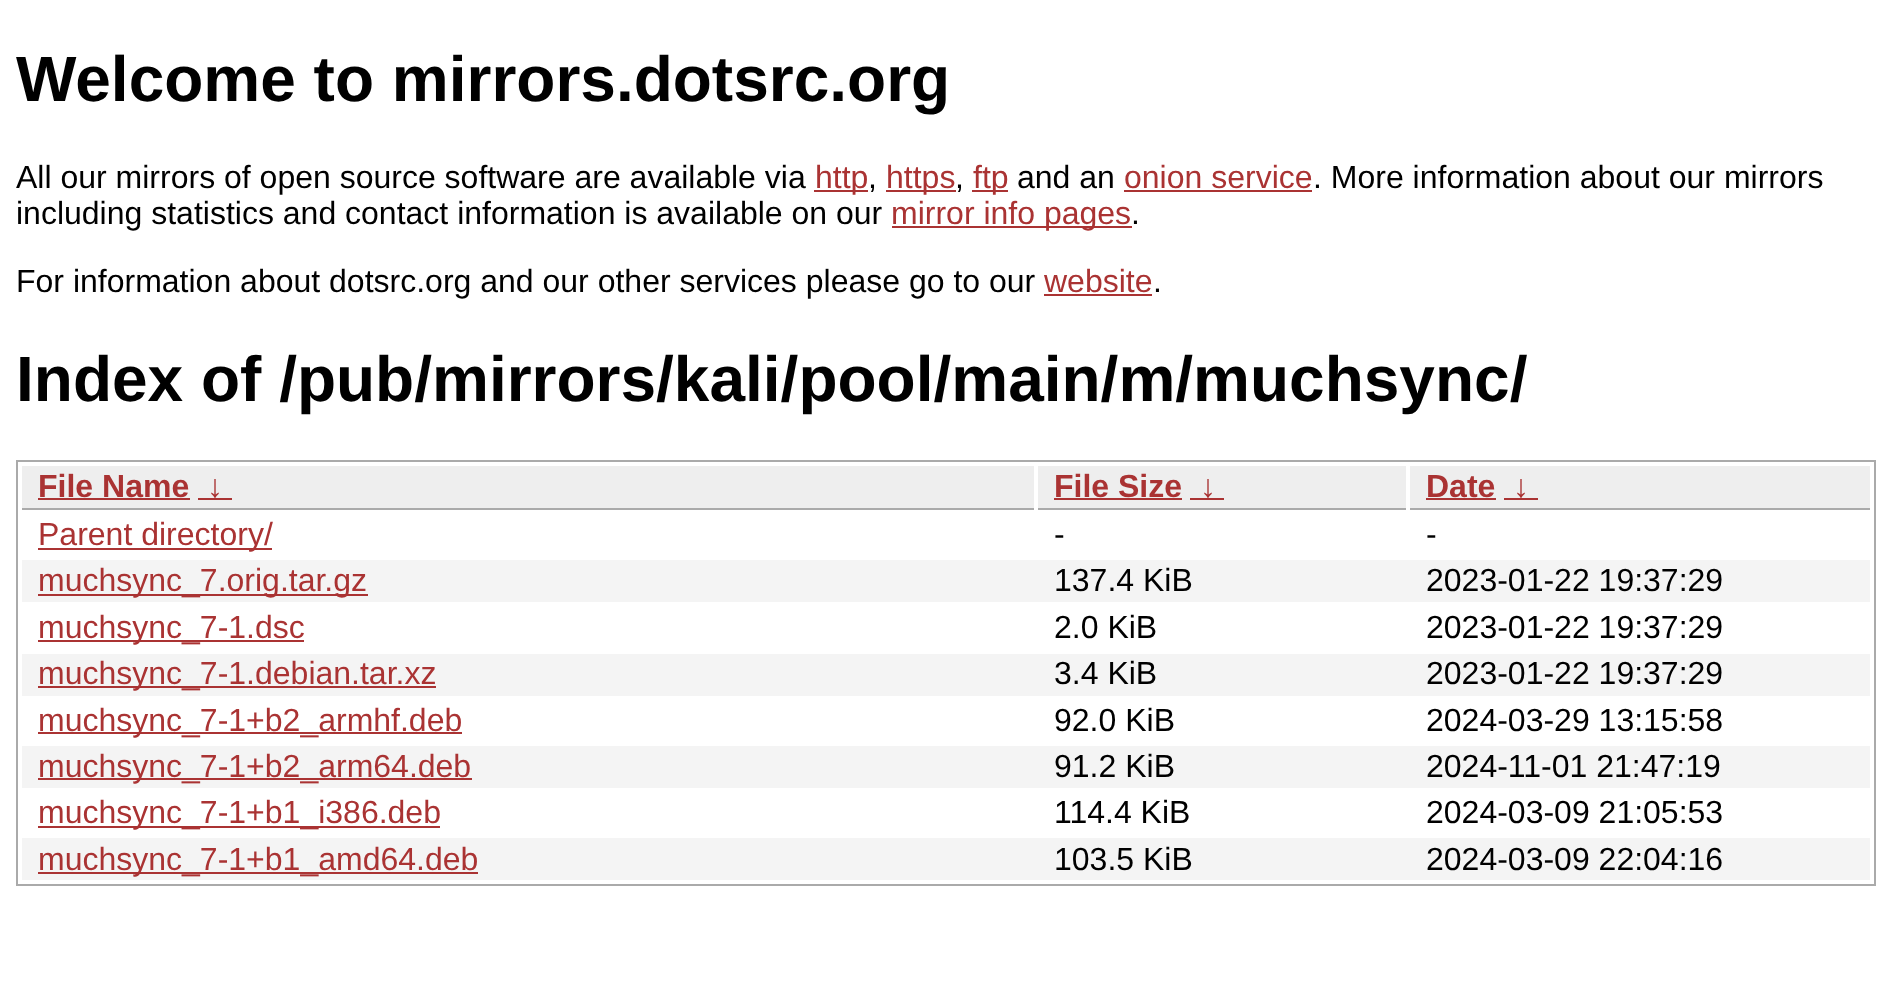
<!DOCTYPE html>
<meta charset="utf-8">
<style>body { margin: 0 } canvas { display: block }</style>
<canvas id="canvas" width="1892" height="1008"></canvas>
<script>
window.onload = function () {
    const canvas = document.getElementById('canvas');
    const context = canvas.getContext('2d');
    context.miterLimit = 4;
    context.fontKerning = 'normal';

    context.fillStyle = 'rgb(255, 255, 255)';
    context.fillRect(0, 0, 1892, 1008);
    context.fillStyle = 'rgb(170, 51, 51)';
    context.fillRect(814, 190, 54, 2);
    context.fillRect(886, 190, 70, 2);
    context.fillRect(972, 190, 36, 2);
    context.fillRect(1124, 190, 188, 2);
    context.fillRect(892, 226, 240, 2);
    context.fillRect(1044, 294, 108, 2);
    context.strokeStyle = 'rgb(170, 170, 170)';
    context.lineWidth = 2;
    context.strokeRect(17, 461, 1858, 424);
    context.fillStyle = 'rgb(238, 238, 238)';
    context.fillRect(22, 466, 1012, 42);
    context.fillStyle = 'rgb(170, 170, 170)';
    context.fillRect(22, 508, 1012, 2);
    context.fillStyle = 'rgb(170, 51, 51)';
    context.fillRect(38, 498, 152, 2);
    context.fillRect(198, 498, 34, 2);
    context.fillStyle = 'rgb(238, 238, 238)';
    context.fillRect(1038, 466, 368, 42);
    context.fillStyle = 'rgb(170, 170, 170)';
    context.fillRect(1038, 508, 368, 2);
    context.fillStyle = 'rgb(170, 51, 51)';
    context.fillRect(1054, 498, 128, 2);
    context.fillRect(1190, 498, 34, 2);
    context.fillStyle = 'rgb(238, 238, 238)';
    context.fillRect(1410, 466, 460, 42);
    context.fillStyle = 'rgb(170, 170, 170)';
    context.fillRect(1410, 508, 460, 2);
    context.fillStyle = 'rgb(170, 51, 51)';
    context.fillRect(1426, 498, 70, 2);
    context.fillRect(1504, 498, 34, 2);
    context.fillRect(38, 548, 234, 2);
    context.fillStyle = 'rgb(244, 244, 244)';
    context.fillRect(22, 560, 1848, 42);
    context.fillStyle = 'rgb(170, 51, 51)';
    context.fillRect(38, 594, 330, 2);
    context.fillRect(38, 640, 266, 2);
    context.fillStyle = 'rgb(244, 244, 244)';
    context.fillRect(22, 654, 1848, 42);
    context.fillStyle = 'rgb(170, 51, 51)';
    context.fillRect(38, 686, 398, 2);
    context.fillRect(38, 732, 424, 2);
    context.fillStyle = 'rgb(244, 244, 244)';
    context.fillRect(22, 746, 1848, 42);
    context.fillStyle = 'rgb(170, 51, 51)';
    context.fillRect(38, 778, 434, 2);
    context.fillRect(38, 826, 402, 2);
    context.fillStyle = 'rgb(244, 244, 244)';
    context.fillRect(22, 838, 1848, 42);
    context.fillStyle = 'rgb(170, 51, 51)';
    context.fillRect(38, 872, 440, 2);
    context.font = 'bold 64px Liberation Sans';
    context.fillStyle = 'rgb(0, 0, 0)';
    context.fillText('Welcome to mirrors.dotsrc.org', 16, 101);
    context.font = '32px Liberation Sans';
    context.fillText('All our mirrors of open source software are available via', 16, 188);
    context.fillStyle = 'rgb(170, 51, 51)';
    context.fillText('http', 815, 188);
    context.fillStyle = 'rgb(0, 0, 0)';
    context.fillText(',', 868, 188);
    context.fillStyle = 'rgb(170, 51, 51)';
    context.fillText('https', 886, 188);
    context.fillStyle = 'rgb(0, 0, 0)';
    context.fillText(',', 955, 188);
    context.fillStyle = 'rgb(170, 51, 51)';
    context.fillText('ftp', 973, 188);
    context.fillStyle = 'rgb(0, 0, 0)';
    context.fillText('and an', 1017, 188);
    context.fillStyle = 'rgb(170, 51, 51)';
    context.fillText('onion service', 1124, 188);
    context.fillStyle = 'rgb(0, 0, 0)';
    context.fillText('. More information about our mirrors', 1313, 188);
    context.fillText('including statistics and contact information is available on our', 16, 224);
    context.fillStyle = 'rgb(170, 51, 51)';
    context.fillText('mirror info pages', 891, 224);
    context.fillStyle = 'rgb(0, 0, 0)';
    context.fillText('.', 1131, 224);
    context.fillText('For information about dotsrc.org and our other services please go to our', 16, 292);
    context.fillStyle = 'rgb(170, 51, 51)';
    context.fillText('website', 1044, 292);
    context.fillStyle = 'rgb(0, 0, 0)';
    context.fillText('.', 1153, 292);
    context.font = 'bold 64px Liberation Sans';
    context.fillText('Index of /pub/mirrors/kali/pool/main/m/muchsync/', 16, 401);
    context.font = 'bold 32px Liberation Sans';
    context.fillStyle = 'rgb(170, 51, 51)';
    context.fillText('File Name', 38, 497);
    context.fillText('↓', 207, 497);
    context.fillText('File Size', 1054, 497);
    context.fillText('↓', 1200, 497);
    context.fillText('Date', 1426, 497);
    context.fillText('↓', 1513, 497);
    context.font = '32px Liberation Sans';
    context.fillText('Parent directory/', 38, 545);
    context.fillStyle = 'rgb(0, 0, 0)';
    context.fillText('-', 1054, 545);
    context.fillText('-', 1426, 545);
    context.fillStyle = 'rgb(170, 51, 51)';
    context.fillText('muchsync_7.orig.tar.gz', 38, 591);
    context.fillStyle = 'rgb(0, 0, 0)';
    context.fillText('137.4 KiB', 1054, 591);
    context.fillText('2023-01-22 19:37:29', 1426, 591);
    context.fillStyle = 'rgb(170, 51, 51)';
    context.fillText('muchsync_7-1.dsc', 38, 638);
    context.fillStyle = 'rgb(0, 0, 0)';
    context.fillText('2.0 KiB', 1054, 638);
    context.fillText('2023-01-22 19:37:29', 1426, 638);
    context.fillStyle = 'rgb(170, 51, 51)';
    context.fillText('muchsync_7-1.debian.tar.xz', 38, 684);
    context.fillStyle = 'rgb(0, 0, 0)';
    context.fillText('3.4 KiB', 1054, 684);
    context.fillText('2023-01-22 19:37:29', 1426, 684);
    context.fillStyle = 'rgb(170, 51, 51)';
    context.fillText('muchsync_7-1+b2_armhf.deb', 38, 731);
    context.fillStyle = 'rgb(0, 0, 0)';
    context.fillText('92.0 KiB', 1054, 731);
    context.fillText('2024-03-29 13:15:58', 1426, 731);
    context.fillStyle = 'rgb(170, 51, 51)';
    context.fillText('muchsync_7-1+b2_arm64.deb', 38, 777);
    context.fillStyle = 'rgb(0, 0, 0)';
    context.fillText('91.2 KiB', 1054, 777);
    context.fillText('2024-11-01 21:47:19', 1426, 777);
    context.fillStyle = 'rgb(170, 51, 51)';
    context.fillText('muchsync_7-1+b1_i386.deb', 38, 823);
    context.fillStyle = 'rgb(0, 0, 0)';
    context.fillText('114.4 KiB', 1054, 823);
    context.fillText('2024-03-09 21:05:53', 1426, 823);
    context.fillStyle = 'rgb(170, 51, 51)';
    context.fillText('muchsync_7-1+b1_amd64.deb', 38, 870);
    context.fillStyle = 'rgb(0, 0, 0)';
    context.fillText('103.5 KiB', 1054, 870);
    context.fillText('2024-03-09 22:04:16', 1426, 870);
};
</script>
